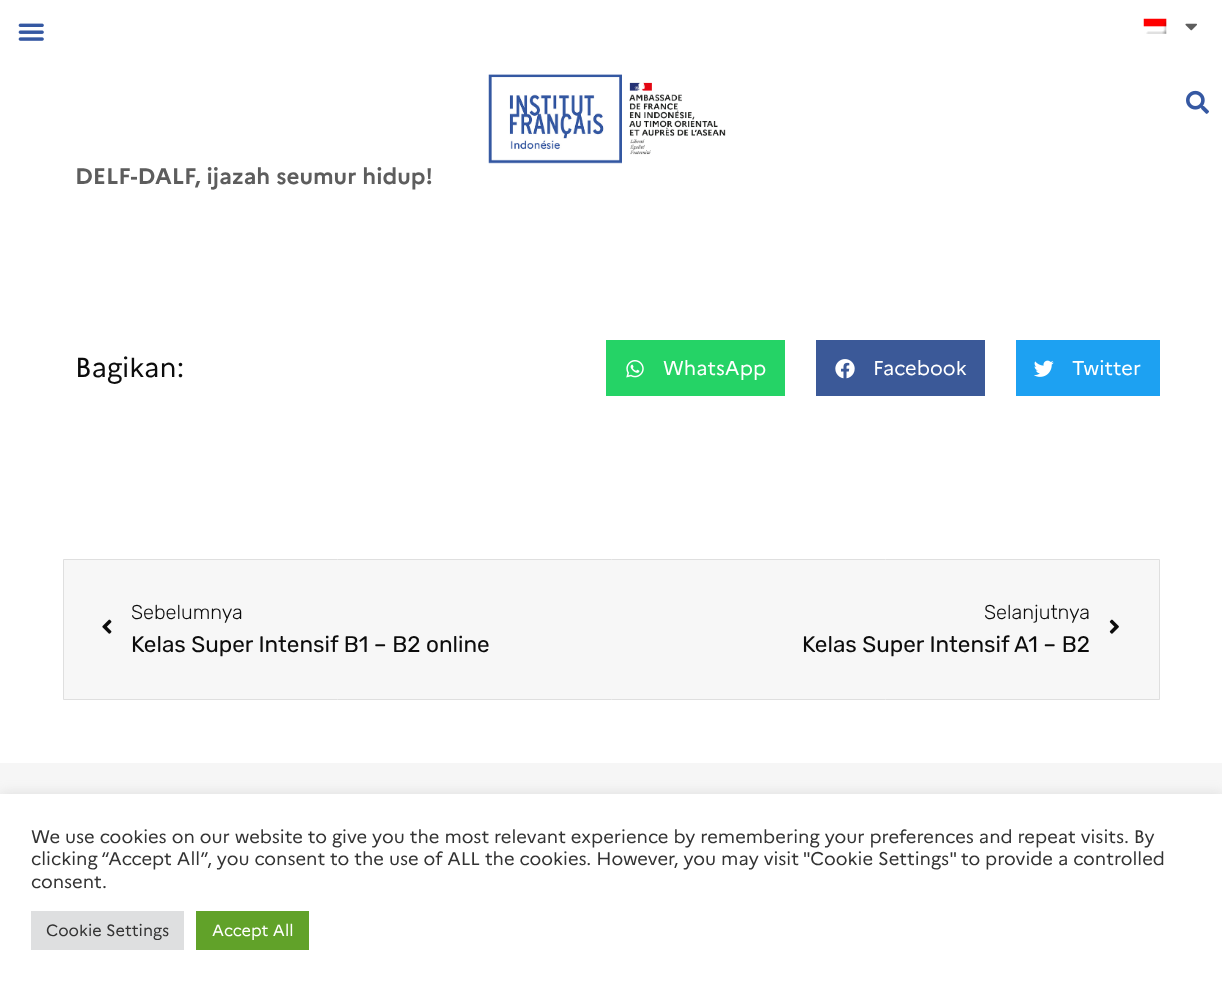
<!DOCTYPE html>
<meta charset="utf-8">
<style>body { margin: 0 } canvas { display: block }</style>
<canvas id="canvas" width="1222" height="987"></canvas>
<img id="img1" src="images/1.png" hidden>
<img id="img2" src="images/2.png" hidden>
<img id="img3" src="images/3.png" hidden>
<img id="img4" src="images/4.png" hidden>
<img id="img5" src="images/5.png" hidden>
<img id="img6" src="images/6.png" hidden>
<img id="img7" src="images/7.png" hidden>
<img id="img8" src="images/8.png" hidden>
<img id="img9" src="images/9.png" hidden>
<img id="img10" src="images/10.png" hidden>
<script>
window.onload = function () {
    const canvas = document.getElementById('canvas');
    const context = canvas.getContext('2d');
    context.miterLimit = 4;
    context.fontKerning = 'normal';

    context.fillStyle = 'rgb(255, 255, 255)';
    context.fillRect(0, 0, 1222, 987);
    context.drawImage(document.getElementById('img1'), 18, 23, 26, 18);
    context.drawImage(document.getElementById('img2'), 1143, 18, 24, 16);
    context.drawImage(document.getElementById('img3'), 1185, 23, 12, 8);
    context.drawImage(document.getElementById('img4'), 1186, 90, 23, 24);
    context.drawImage(document.getElementById('img5'), 488, 74, 238, 90);
    context.fillStyle = 'rgb(37, 211, 102)';
    context.fillRect(606, 340, 179, 56);
    context.drawImage(document.getElementById('img6'), 626, 360, 18, 18);
    context.fillStyle = 'rgb(59, 89, 152)';
    context.fillRect(816, 340, 169, 56);
    context.drawImage(document.getElementById('img7'), 835, 359, 20, 20);
    context.fillStyle = 'rgb(29, 161, 242)';
    context.fillRect(1016, 340, 144, 56);
    context.drawImage(document.getElementById('img8'), 1034, 360, 20, 17);
    context.fillStyle = 'rgb(247, 247, 247)';
    context.beginPath();
    context.rect(63.5, 559.5, 1096, 140);
    context.fill();
    context.strokeStyle = 'rgb(223, 223, 223)';
    context.stroke();
    context.drawImage(document.getElementById('img9'), 102, 619, 10, 15);
    context.drawImage(document.getElementById('img10'), 1109, 619, 10, 15);
    context.fillStyle = 'rgb(246, 246, 246)';
    context.fillRect(0, 763, 1222, 31);
    context.fillStyle = 'rgba(172, 171, 171, 0.3)';
    context.filter = 'blur(6px)';
    context.beginPath();
    context.rect(0, 793, 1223, 193);
    context.fill();
    context.filter = 'none';
    context.fillStyle = 'rgb(255, 255, 255)';
    context.fillRect(0, 794, 1222, 193);
    context.fillStyle = 'rgb(222, 223, 224)';
    context.fillRect(31, 911, 153, 39);
    context.fillStyle = 'rgb(97, 162, 41)';
    context.fillRect(196, 911, 113, 39);
    context.font = 'bold 22.5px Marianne';
    context.fillStyle = 'rgb(93, 93, 93)';
    context.fillText('DELF-DALF, ijazah seumur hidup!', 75, 184);
    context.font = '27.5px Marianne';
    context.fillStyle = 'rgb(12, 12, 12)';
    context.fillText('Bagikan:', 75, 377);
    context.font = '20px Marianne';
    context.fillStyle = 'rgb(255, 255, 255)';
    context.fillText('WhatsApp', 663, 375);
    context.fillText('Facebook', 873, 375);
    context.fillText('Twitter', 1072, 375);
    context.font = '300 20px Rubik';
    context.fillStyle = 'rgb(12, 12, 12)';
    context.fillText('Sebelumnya', 131, 619);
    context.font = '22.5px Rubik';
    context.fillText('Kelas Super Intensif B1 – B2 online', 131, 652);
    context.font = '300 20px Rubik';
    context.fillText('Selanjutnya', 984, 619);
    context.font = '22.5px Rubik';
    context.fillText('Kelas Super Intensif A1 – B2', 802, 652);
    context.font = '18.33px Marianne';
    context.fillStyle = 'rgb(51, 51, 51)';
    context.fillText('We use cookies on our website to give you the most relevant experience by remembering your preferences and repeat visits. By', 31, 843);
    context.fillText('clicking “Accept All”, you consent to the use of ALL the cookies. However, you may visit "Cookie Settings" to provide a controlled', 31, 865);
    context.fillText('consent.', 31, 888);
    context.font = '16.25px Marianne';
    context.fillText('Cookie Settings', 46, 936);
    context.fillStyle = 'rgb(255, 255, 255)';
    context.fillText('Accept All', 212, 936);
};
</script>
